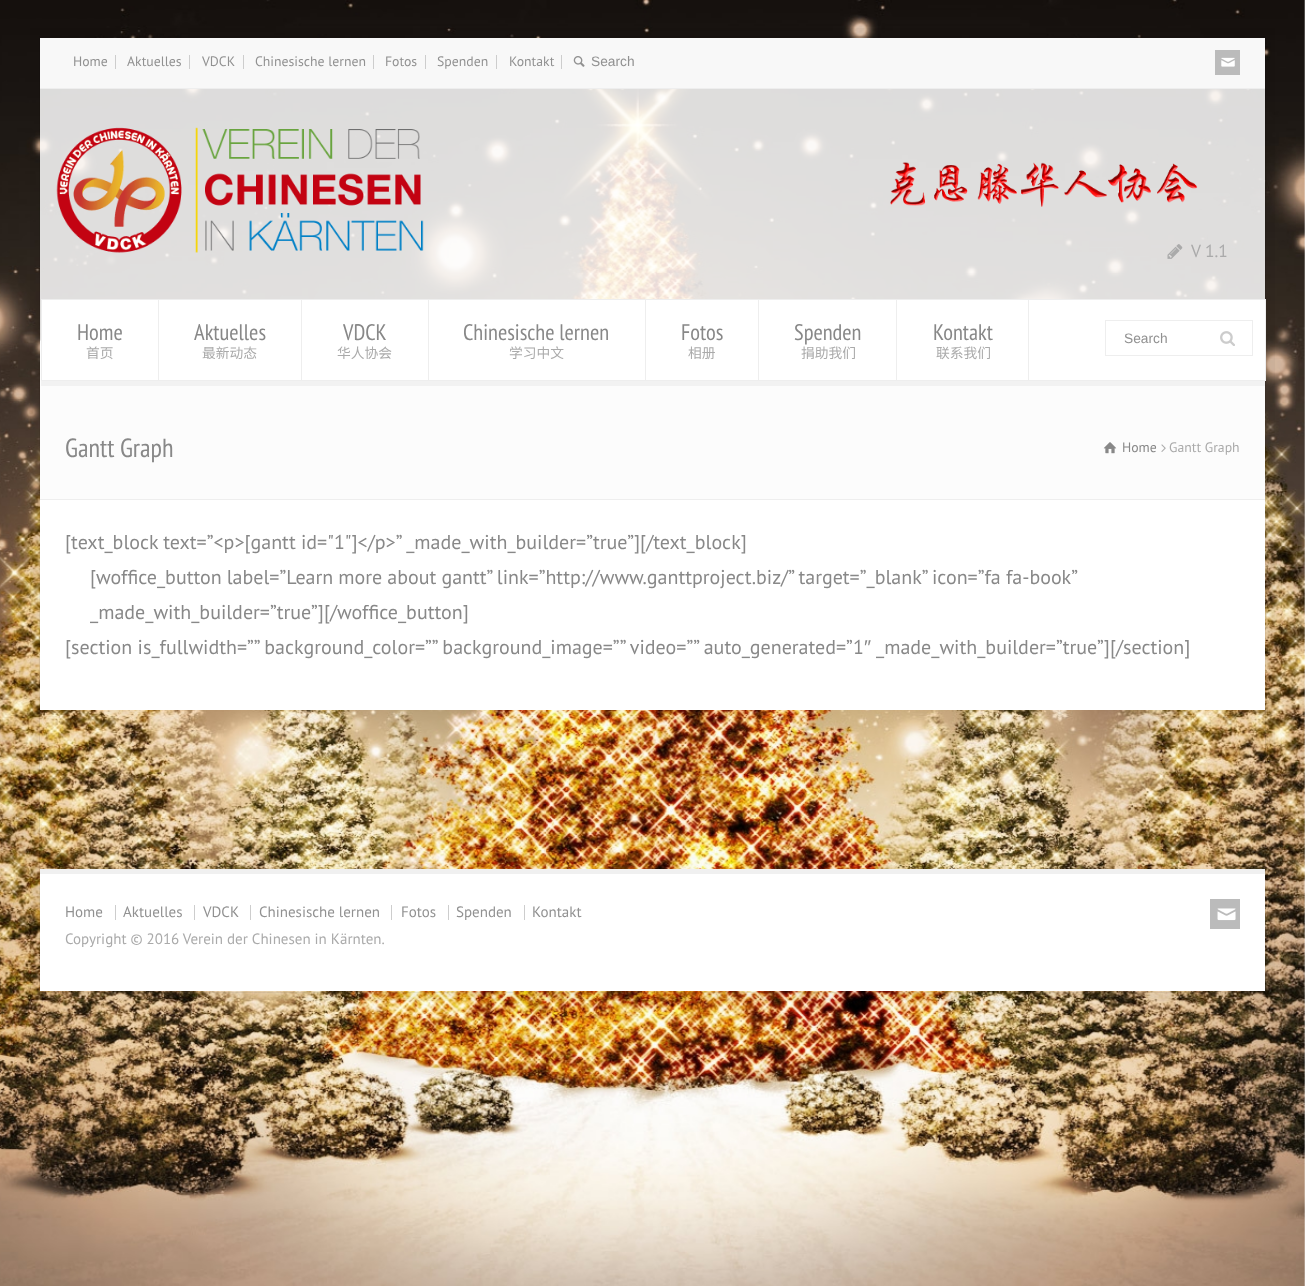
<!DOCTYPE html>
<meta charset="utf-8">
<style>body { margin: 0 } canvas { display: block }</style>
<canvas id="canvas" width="1305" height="1286"></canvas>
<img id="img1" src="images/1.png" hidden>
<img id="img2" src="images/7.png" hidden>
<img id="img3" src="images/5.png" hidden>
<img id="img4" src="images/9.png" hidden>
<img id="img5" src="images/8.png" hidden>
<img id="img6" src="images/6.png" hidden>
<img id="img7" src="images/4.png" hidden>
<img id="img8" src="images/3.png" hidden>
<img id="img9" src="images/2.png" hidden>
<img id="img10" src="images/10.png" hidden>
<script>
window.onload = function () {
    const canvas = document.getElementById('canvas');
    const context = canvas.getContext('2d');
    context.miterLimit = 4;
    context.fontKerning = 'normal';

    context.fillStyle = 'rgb(255, 255, 255)';
    context.fillRect(0, 0, 1305, 1286);
    context.drawImage(document.getElementById('img1'), 0, 0, 1305, 1286);
    context.strokeStyle = 'rgba(4, 4, 4, 0.06)';
    context.strokeRect(39.5, 36.5, 1226, 956);
    context.font = '13.75px PT Sans';
    context.fillStyle = 'rgb(114, 91, 56)';
    context.fillText('.', 1274, 873);
    context.strokeStyle = 'rgba(0, 0, 0, 0.03)';
    context.lineWidth = 10;
    context.strokeRect(35, 33, 1235, 963);
    context.fillStyle = 'rgb(252, 252, 252)';
    context.fillRect(40, 341, 1225, 158);
    context.fillStyle = 'rgba(255, 255, 255, 0.85)';
    context.fillRect(40, 89, 1225, 251);
    context.fillStyle = 'rgb(255, 255, 255)';
    context.fillRect(42, 300, 1223, 80);
    context.font = '13.75px Noto Sans CJK SC';
    context.fillStyle = 'rgb(170, 170, 170)';
    context.fillText('联系我们', 936, 358);
    context.font = '22.5px PT Sans Narrow';
    context.fillStyle = 'rgb(136, 136, 136)';
    context.fillText('Kontakt', 933, 340);
    context.fillStyle = 'rgb(238, 238, 238)';
    context.fillRect(1028, 300, 1, 80);
    context.font = '13.75px Noto Sans CJK SC';
    context.fillStyle = 'rgb(170, 170, 170)';
    context.fillText('捐助我们', 801, 358);
    context.font = '22.5px PT Sans Narrow';
    context.fillStyle = 'rgb(136, 136, 136)';
    context.fillText('Spenden', 794, 340);
    context.fillStyle = 'rgb(238, 238, 238)';
    context.fillRect(896, 300, 1, 80);
    context.font = '13.75px Noto Sans CJK SC';
    context.fillStyle = 'rgb(170, 170, 170)';
    context.fillText('相册', 688, 358);
    context.font = '22.5px PT Sans Narrow';
    context.fillStyle = 'rgb(136, 136, 136)';
    context.fillText('Fotos', 681, 340);
    context.fillStyle = 'rgb(238, 238, 238)';
    context.fillRect(758, 300, 1, 80);
    context.font = '13.75px Noto Sans CJK SC';
    context.fillStyle = 'rgb(170, 170, 170)';
    context.fillText('学习中文', 509, 358);
    context.font = '22.5px PT Sans Narrow';
    context.fillStyle = 'rgb(136, 136, 136)';
    context.fillText('Chinesische lernen', 463, 340);
    context.font = '13.75px Noto Sans CJK SC';
    context.fillStyle = 'rgb(170, 170, 170)';
    context.fillText('华人协会', 337, 358);
    context.font = '22.5px PT Sans Narrow';
    context.fillStyle = 'rgb(136, 136, 136)';
    context.fillText('VDCK', 343, 340);
    context.fillStyle = 'rgb(238, 238, 238)';
    context.fillRect(428, 300, 1, 80);
    context.font = '13.75px Noto Sans CJK SC';
    context.fillStyle = 'rgb(170, 170, 170)';
    context.fillText('最新动态', 202, 358);
    context.font = '22.5px PT Sans Narrow';
    context.fillStyle = 'rgb(136, 136, 136)';
    context.fillText('Aktuelles', 194, 340);
    context.fillStyle = 'rgb(238, 238, 238)';
    context.fillRect(301, 300, 1, 80);
    context.font = '13.75px Noto Sans CJK SC';
    context.fillStyle = 'rgb(170, 170, 170)';
    context.fillText('首页', 86, 358);
    context.font = '22.5px PT Sans Narrow';
    context.fillStyle = 'rgb(136, 136, 136)';
    context.fillText('Home', 77, 340);
    context.fillStyle = 'rgb(238, 238, 238)';
    context.fillRect(41, 300, 1, 80);
    context.fillRect(158, 300, 1, 80);
    context.fillRect(645, 300, 1, 80);
    context.strokeStyle = 'rgb(238, 238, 238)';
    context.lineWidth = 1;
    context.strokeRect(1105.5, 320.5, 147, 35);
    context.drawImage(document.getElementById('img2'), 1220, 331, 15, 15);
    context.font = '13.75px Liberation Sans';
    context.fillStyle = 'rgb(145, 145, 145)';
    context.fillText('Search', 1124, 343);
    context.fillStyle = 'rgb(238, 238, 238)';
    context.fillRect(41, 299, 1225, 1);
    context.fillRect(1265, 299, 1, 82);
    context.fillRect(41, 380, 1225, 1);
    context.fillStyle = 'rgba(0, 0, 0, 0.04)';
    context.beginPath();
    context.moveTo(41, 304);
    context.lineTo(41, 386);
    context.lineTo(1266, 386);
    context.lineTo(1266, 381);
    context.lineTo(41, 381);
    context.closePath();
    context.fill();
    context.drawImage(document.getElementById('img3'), 890, 162, 308, 45);
    context.fillStyle = 'rgb(255, 255, 255)';
    context.fillRect(40, 500, 1225, 210);
    context.font = '20px PT Sans';
    context.fillStyle = 'rgb(136, 136, 136)';
    context.fillText('_made_with_builder=”true”][/section]', 876, 654);
    context.font = '20px Liberation Sans';
    context.fillText('″', 864, 654);
    context.font = '20px PT Sans';
    context.fillText('[section is_fullwidth=”” background_color=”” background_image=”” video=”” auto_generated=”1', 65, 654);
    context.fillText('_made_with_builder=”true”][/woffice_button]', 90, 619);
    context.wordSpacing = '-0.25px';
    context.fillText('[woffice_button label=”Learn more about gantt” link=”http://www.ganttproject.biz/” target=”_blank” icon=”fa fa-book”', 90, 584);
    context.wordSpacing = '0px';
    context.fillText('[text_block text=”<p>[gantt id="1"]<\/p>” _made_with_builder=”true”][/text_block]', 65, 549);
    context.font = '26.25px PT Sans Narrow';
    context.fillText('Gantt Graph', 65, 457);
    context.font = '13.75px PT Sans';
    context.fillStyle = 'rgb(170, 170, 170)';
    context.fillText('Gantt Graph', 1169, 452);
    context.drawImage(document.getElementById('img4'), 1161, 444, 5, 8);
    context.fillStyle = 'rgb(136, 136, 136)';
    context.fillText('Home', 1122, 452);
    context.drawImage(document.getElementById('img5'), 1103, 442, 14, 12);
    context.fillStyle = 'rgb(238, 238, 238)';
    context.fillRect(40, 499, 1225, 1);
    context.fillRect(40, 340, 1, 1);
    context.fillStyle = 'rgb(255, 255, 255)';
    context.fillRect(40, 874, 1225, 117);
    context.fillStyle = 'rgb(187, 187, 187)';
    context.fillRect(1210, 899, 30, 30);
    context.font = '17.5px PT Sans';
    context.fillStyle = 'rgb(170, 170, 170)';
    context.fillText('V 1.1', 1191, 257);
    context.drawImage(document.getElementById('img6'), 1167, 244, 16, 15);
    context.drawImage(document.getElementById('img7'), 56, 127, 368, 126);
    context.fillStyle = 'rgb(248, 248, 248)';
    context.fillRect(40, 38, 1225, 50);
    context.fillStyle = 'rgb(187, 187, 187)';
    context.fillRect(1215, 50, 25, 25);
    context.drawImage(document.getElementById('img8'), 1221, 57, 14, 10);
    context.font = '13.75px Liberation Sans';
    context.fillStyle = 'rgb(145, 145, 145)';
    context.fillText('Search', 591, 66);
    context.drawImage(document.getElementById('img9'), 573, 56, 12, 11);
    context.font = '13.75px PT Sans';
    context.fillText('Kontakt', 509, 66);
    context.fillStyle = 'rgb(205, 205, 205)';
    context.fillRect(561, 55, 1, 14);
    context.fillStyle = 'rgb(145, 145, 145)';
    context.fillText('Spenden', 437, 66);
    context.fillStyle = 'rgb(205, 205, 205)';
    context.fillRect(496, 55, 1, 14);
    context.fillStyle = 'rgb(145, 145, 145)';
    context.fillText('Fotos', 385, 66);
    context.fillStyle = 'rgb(205, 205, 205)';
    context.fillRect(425, 55, 1, 14);
    context.fillStyle = 'rgb(145, 145, 145)';
    context.fillText('Chinesische lernen', 255, 66);
    context.fillStyle = 'rgb(205, 205, 205)';
    context.fillRect(373, 55, 1, 14);
    context.fillStyle = 'rgb(145, 145, 145)';
    context.fillText('VDCK', 202, 66);
    context.fillStyle = 'rgb(205, 205, 205)';
    context.fillRect(243, 55, 1, 14);
    context.fillStyle = 'rgb(145, 145, 145)';
    context.fillText('Aktuelles', 127, 66);
    context.fillStyle = 'rgb(205, 205, 205)';
    context.fillRect(189, 55, 1, 14);
    context.fillStyle = 'rgb(145, 145, 145)';
    context.fillText('Home', 73, 66);
    context.fillStyle = 'rgb(205, 205, 205)';
    context.fillRect(115, 55, 1, 14);
    context.fillStyle = 'rgb(240, 240, 240)';
    context.fillRect(40, 869, 1225, 5);
    context.fillStyle = 'rgb(238, 238, 238)';
    context.fillRect(40, 88, 1225, 1);
    context.drawImage(document.getElementById('img10'), 1217, 908, 19, 13);
    context.font = '15px PT Sans';
    context.fillStyle = 'rgb(145, 145, 145)';
    context.fillText('Home', 65, 917);
    context.fillStyle = 'rgb(205, 205, 205)';
    context.fillRect(115, 905, 1, 15);
    context.fillStyle = 'rgb(145, 145, 145)';
    context.fillText('Aktuelles', 123, 917);
    context.fillStyle = 'rgb(205, 205, 205)';
    context.fillRect(194, 905, 1, 15);
    context.fillStyle = 'rgb(145, 145, 145)';
    context.fillText('VDCK', 203, 917);
    context.fillStyle = 'rgb(205, 205, 205)';
    context.fillRect(250, 905, 1, 15);
    context.fillStyle = 'rgb(145, 145, 145)';
    context.fillText('Chinesische lernen', 259, 917);
    context.fillStyle = 'rgb(205, 205, 205)';
    context.fillRect(391, 905, 1, 15);
    context.fillStyle = 'rgb(145, 145, 145)';
    context.fillText('Fotos', 401, 917);
    context.fillStyle = 'rgb(205, 205, 205)';
    context.fillRect(448, 905, 1, 15);
    context.fillStyle = 'rgb(145, 145, 145)';
    context.fillText('Spenden', 456, 917);
    context.fillStyle = 'rgb(205, 205, 205)';
    context.fillRect(524, 905, 1, 15);
    context.fillStyle = 'rgb(145, 145, 145)';
    context.fillText('Kontakt', 532, 917);
    context.fillStyle = 'rgb(170, 170, 170)';
    context.fillText('Copyright © 2016 Verein der Chinesen in Kärnten.', 65, 944);
};
</script>
